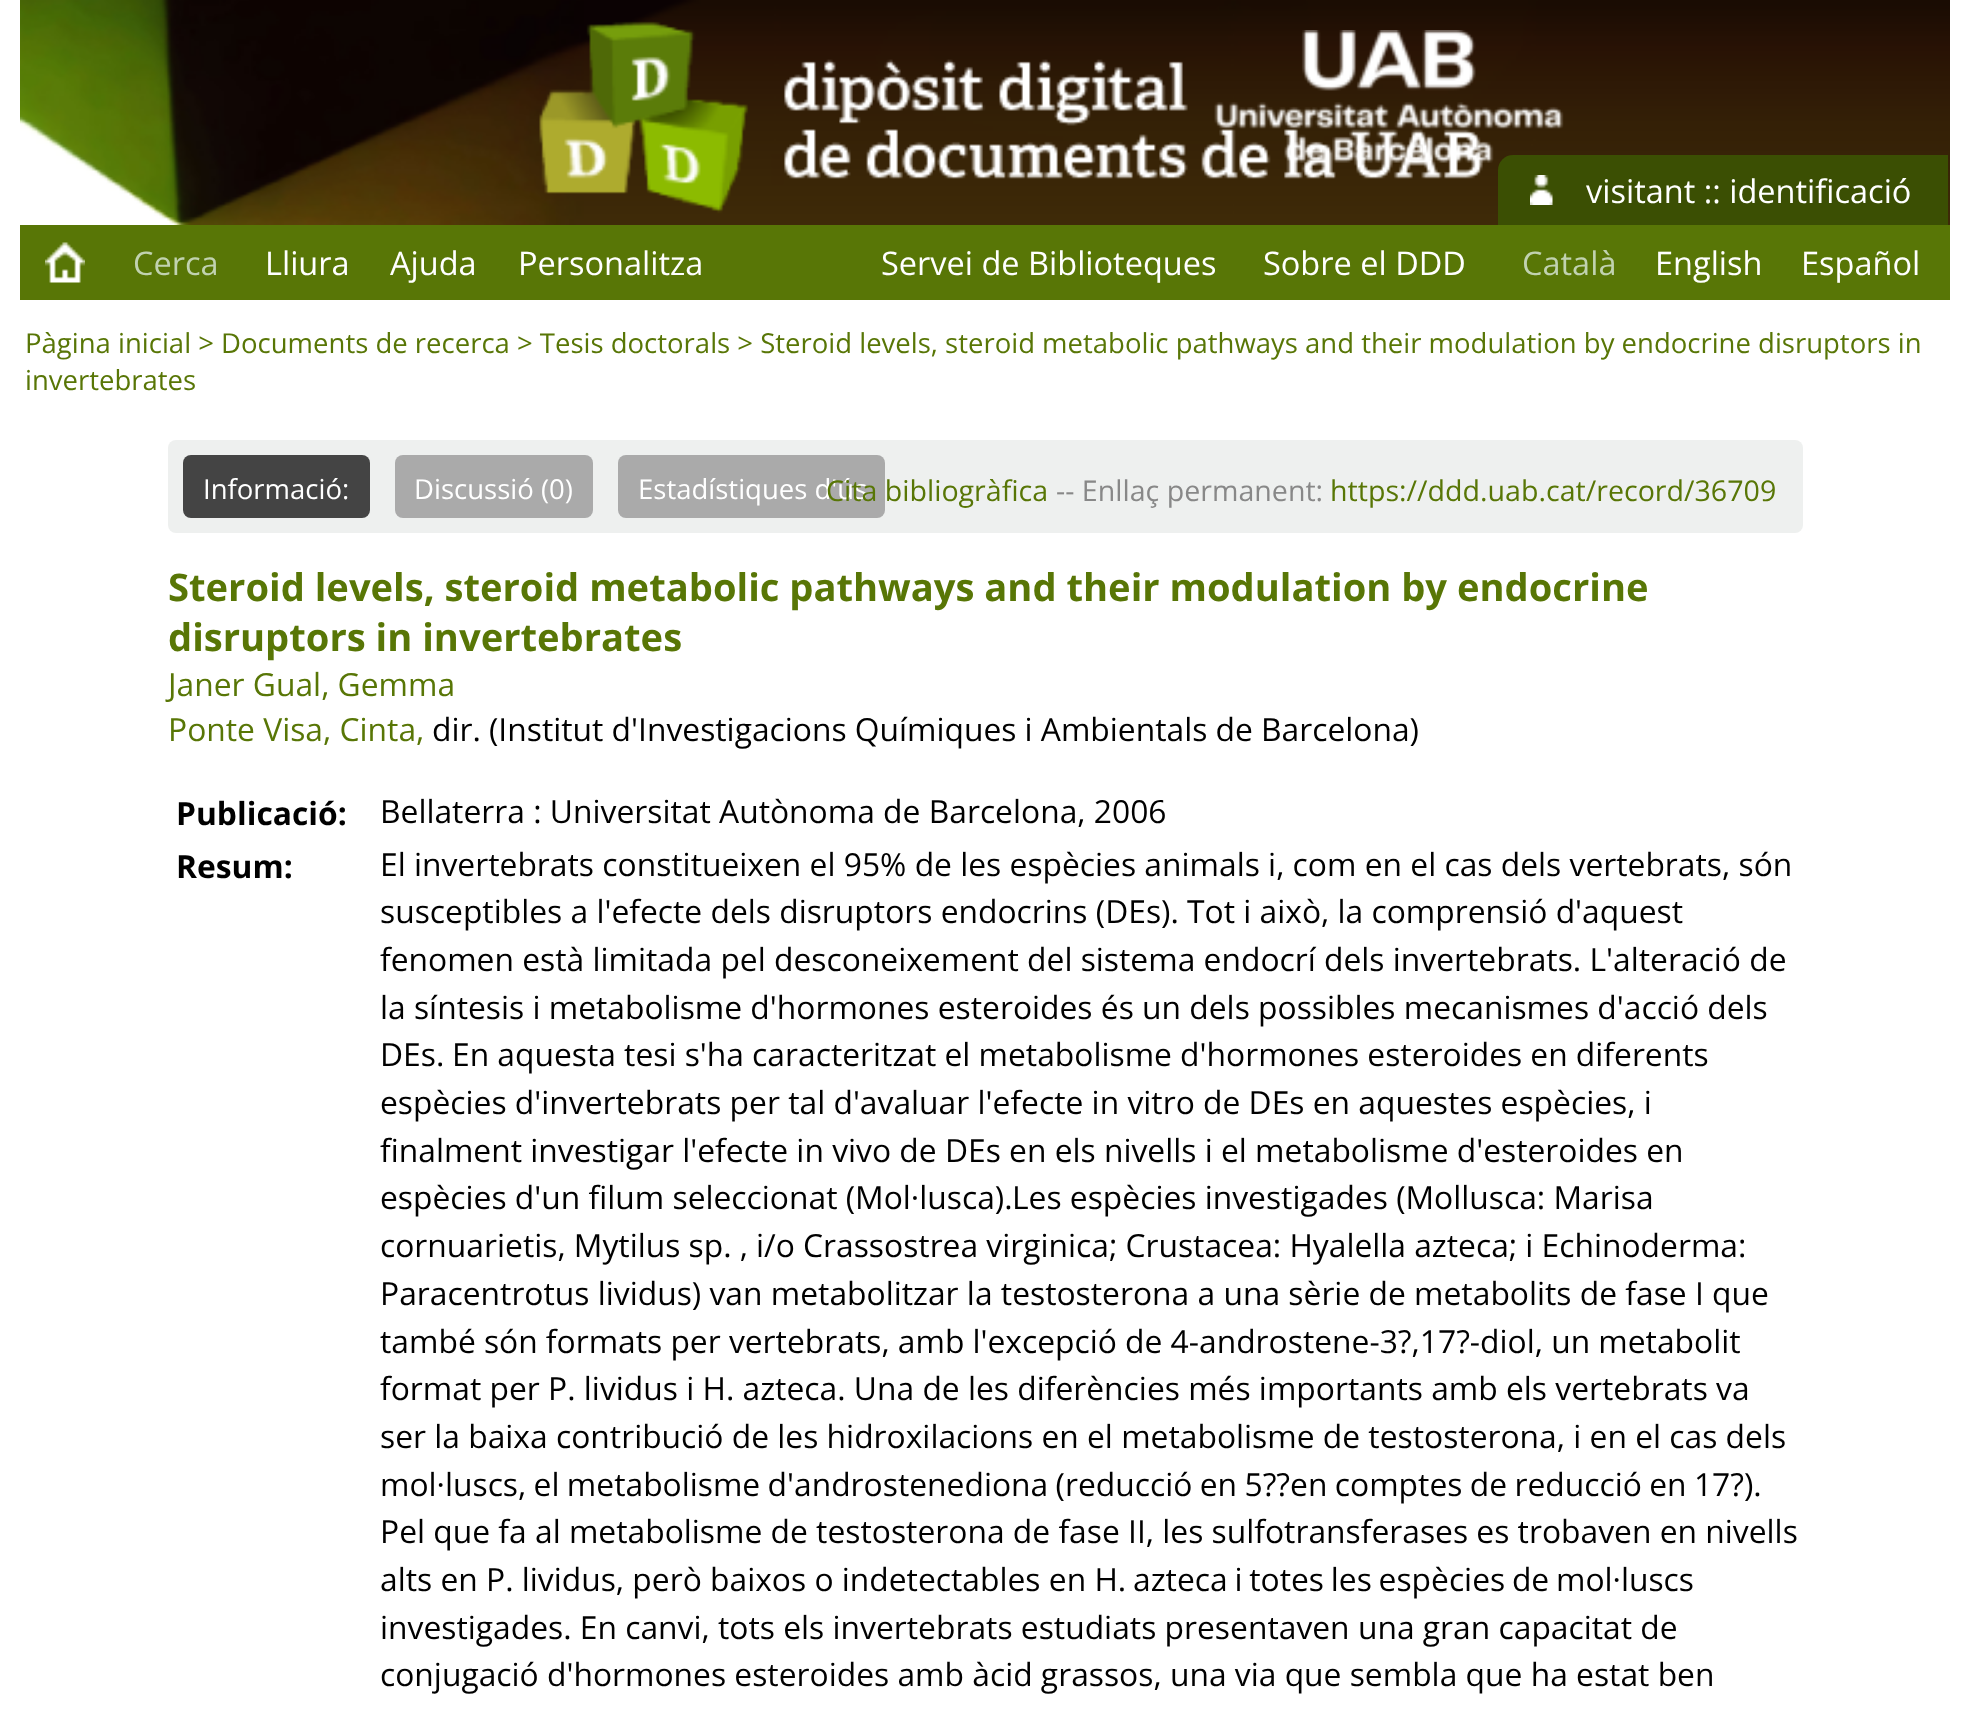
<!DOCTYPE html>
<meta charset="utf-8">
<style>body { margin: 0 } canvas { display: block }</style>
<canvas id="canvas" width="1969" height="1714"></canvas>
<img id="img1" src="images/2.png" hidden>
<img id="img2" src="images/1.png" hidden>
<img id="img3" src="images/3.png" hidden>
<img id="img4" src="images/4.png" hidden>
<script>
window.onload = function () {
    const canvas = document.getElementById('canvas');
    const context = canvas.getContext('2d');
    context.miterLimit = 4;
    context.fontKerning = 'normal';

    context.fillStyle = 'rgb(255, 255, 255)';
    context.fillRect(0, 0, 1969, 1714);
    context.drawImage(document.getElementById('img1'), 20, 0, 1930, 225);
    context.drawImage(document.getElementById('img2'), 1214, 30, 350, 133);
    context.fillStyle = 'rgb(59, 79, 3)';
    context.beginPath();
    context.roundRect(1498, 155, 450, 70, [15, 0, 0, 0]);
    context.fill();
    context.drawImage(document.getElementById('img3'), 1530, 175, 23, 30);
    context.fillStyle = 'rgb(88, 118, 6)';
    context.fillRect(20, 225, 1930, 75);
    context.drawImage(document.getElementById('img4'), 45, 242, 40, 41);
    context.fillStyle = 'rgb(238, 240, 239)';
    context.beginPath();
    context.roundRect(168, 440, 1635, 93, 8);
    context.fill();
    context.fillStyle = 'rgb(68, 68, 68)';
    context.beginPath();
    context.roundRect(183, 455, 187, 63, 8);
    context.fill();
    context.fillStyle = 'rgb(170, 170, 170)';
    context.beginPath();
    context.roundRect(395, 455, 198, 63, 8);
    context.fill();
    context.beginPath();
    context.roundRect(618, 455, 267, 63, 8);
    context.fill();
    context.font = '32.5px Open Sans';
    context.fillStyle = 'rgb(255, 255, 255)';
    context.fillText('visitant :: identificació', 1586, 203);
    context.fillStyle = 'rgb(193, 210, 176)';
    context.fillText('Cerca', 133, 275);
    context.fillStyle = 'rgb(255, 255, 255)';
    context.fillText('Lliura', 265, 275);
    context.fillText('Ajuda', 390, 275);
    context.fillText('Personalitza', 518, 275);
    context.fillText('Servei de Biblioteques', 881, 275);
    context.fillText('Sobre el DDD', 1263, 275);
    context.fillStyle = 'rgb(193, 210, 176)';
    context.fillText('Català', 1522, 275);
    context.fillStyle = 'rgb(255, 255, 255)';
    context.fillText('English', 1655, 275);
    context.fillText('Español', 1801, 275);
    context.font = '27.5px Open Sans';
    context.fillStyle = 'rgb(88, 118, 6)';
    context.fillText('Pàgina inicial > Documents de recerca > Tesis doctorals > Steroid levels, steroid metabolic pathways and their modulation by endocrine disruptors in', 25, 353);
    context.fillText('invertebrates', 25, 390);
    context.fillStyle = 'rgb(255, 255, 255)';
    context.fillText('Informació:', 203, 499);
    context.fillText('Discussió (0)', 414, 499);
    context.fillText('Estadístiques d\'ús', 638, 499);
    context.font = '28.6px Open Sans';
    context.fillStyle = 'rgb(88, 118, 6)';
    context.fillText('Cita bibliogràfica', 826, 501);
    context.fillStyle = 'rgb(136, 136, 136)';
    context.fillText('-- Enllaç permanent:', 1056, 501);
    context.fillStyle = 'rgb(88, 118, 6)';
    context.fillText('https://ddd.uab.cat/record/36709', 1330, 501);
    context.font = 'bold 38.15px Open Sans';
    context.fillText('Steroid levels, steroid metabolic pathways and their modulation by endocrine', 168, 601);
    context.fillText('disruptors in invertebrates', 168, 651);
    context.font = '31.8px Open Sans';
    context.fillText('Janer Gual, Gemma', 168, 696);
    context.fillText('Ponte Visa, Cinta,', 168, 741);
    context.wordSpacing = '-0.1px';
    context.fillStyle = 'rgb(0, 0, 0)';
    context.fillText('dir. (Institut d\'Investigacions Químiques i Ambientals de Barcelona)', 432, 741);
    context.wordSpacing = '0px';
    context.font = 'bold 31.8px Open Sans';
    context.fillText('Publicació:', 176, 825);
    context.font = '31.8px Open Sans';
    context.fillText('Bellaterra : Universitat Autònoma de Barcelona, 2006', 380, 823);
    context.font = 'bold 31.8px Open Sans';
    context.fillText('Resum:', 176, 878);
    context.font = '31.8px Open Sans';
    context.fillText('El invertebrats constitueixen el 95% de les espècies animals i, com en el cas dels vertebrats, són', 380, 876);
    context.fillText('susceptibles a l\'efecte dels disruptors endocrins (DEs). Tot i això, la comprensió d\'aquest', 380, 923);
    context.fillText('fenomen està limitada pel desconeixement del sistema endocrí dels invertebrats. L\'alteració de', 380, 971);
    context.fillText('la síntesis i metabolisme d\'hormones esteroides és un dels possibles mecanismes d\'acció dels', 380, 1019);
    context.fillText('DEs.', 380, 1066);
    context.wordSpacing = '-0.1px';
    context.fillText('En aquesta tesi s\'ha caracteritzat el metabolisme d\'hormones esteroides en diferents', 452, 1066);
    context.wordSpacing = '0px';
    context.fillText('espècies d\'invertebrats per tal d\'avaluar l\'efecte in vitro de DEs en aquestes espècies, i', 380, 1114);
    context.fillText('finalment investigar l\'efecte in vivo de DEs en els nivells i el metabolisme d\'esteroides en', 380, 1162);
    context.fillText('espècies d\'un filum seleccionat (Mol·lusca).', 380, 1209);
    context.fillText('Les espècies investigades (Mollusca: Marisa', 1012, 1209);
    context.wordSpacing = '-0.1px';
    context.fillText('cornuarietis, Mytilus sp. , i/o Crassostrea virginica; Crustacea: Hyalella azteca; i Echinoderma:', 380, 1257);
    context.wordSpacing = '0px';
    context.fillText('Paracentrotus lividus) van metabolitzar la testosterona a una sèrie de metabolits de fase I que', 380, 1305);
    context.wordSpacing = '-0.1px';
    context.fillText('també són formats per vertebrats, amb l\'excepció de 4-androstene-3?,17?-diol, un metabolit', 380, 1353);
    context.wordSpacing = '0px';
    context.fillText('format per P. lividus i H. azteca. Una de les diferències més importants amb els vertebrats va', 380, 1400);
    context.fillText('ser la baixa contribució de les hidroxilacions en el metabolisme de testosterona, i en el cas dels', 380, 1448);
    context.wordSpacing = '-0.9px';
    context.fillText('mol·luscs, el metabolisme d\'androstenediona (reducció en 5??en comptes de reducció en 17?).', 380, 1496);
    context.wordSpacing = '0px';
    context.fillText('Pel que fa al metabolisme de testosterona de fase II, les sulfotransferases es trobaven en nivells', 380, 1543);
    context.fillText('alts en P. lividus, però baixos o indetectables en H.', 380, 1591);
    context.wordSpacing = '-1.5px';
    context.fillText('azteca i totes les espècies de mol·luscs', 1133, 1591);
    context.wordSpacing = '0px';
    context.fillText('investigades. En canvi, tots els invertebrats estudiats presentaven una gran capacitat de', 380, 1639);
    context.fillText('conjugació d\'hormones esteroides amb àcid grassos, una via que sembla que ha estat ben', 380, 1686);
};
</script>
